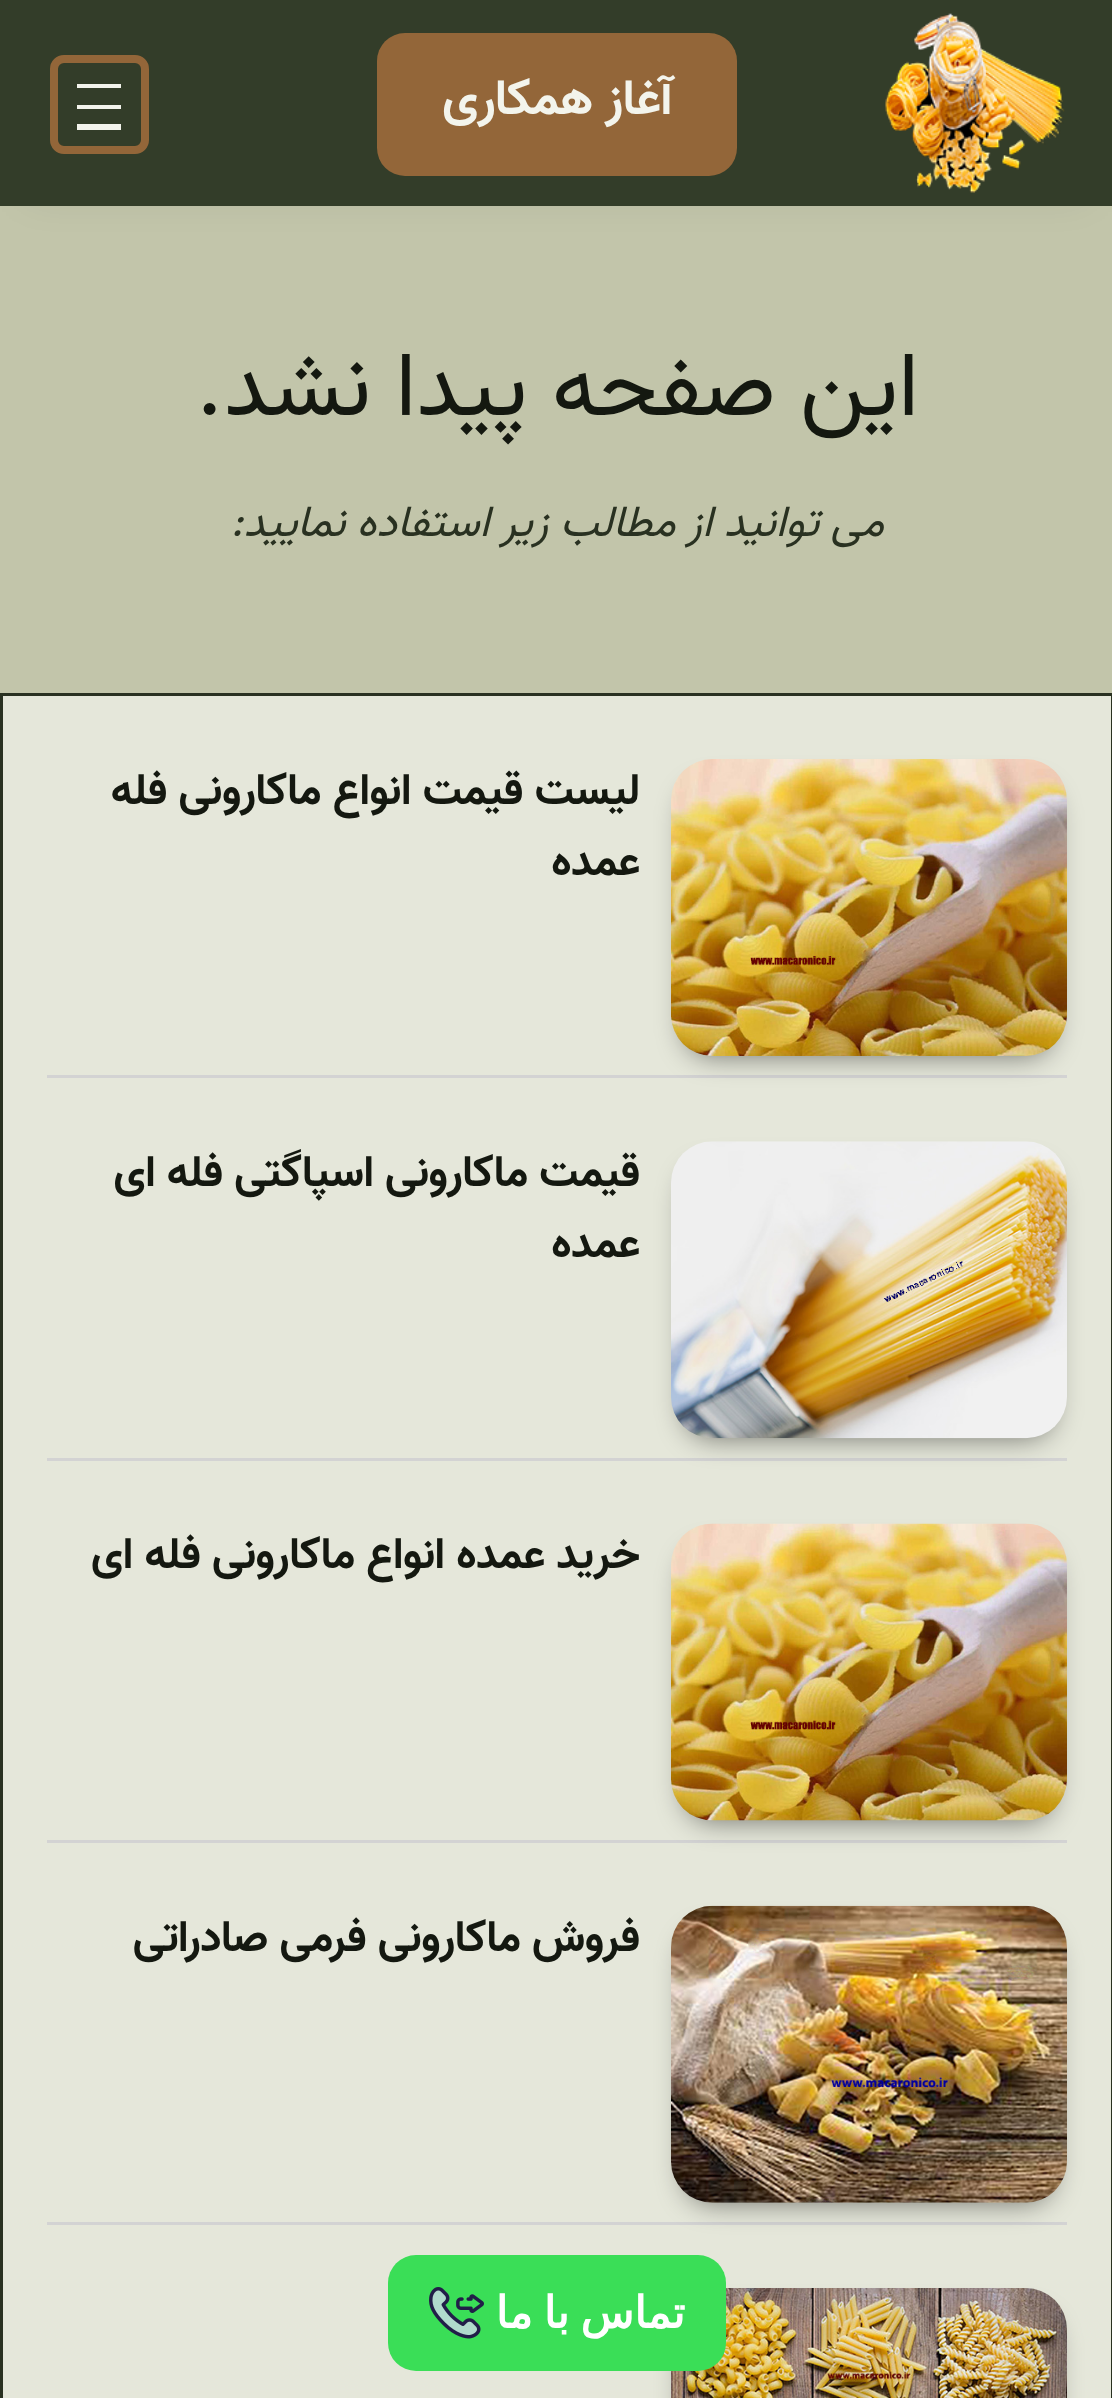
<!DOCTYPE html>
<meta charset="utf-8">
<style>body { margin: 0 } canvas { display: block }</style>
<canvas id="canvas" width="1112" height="2398"></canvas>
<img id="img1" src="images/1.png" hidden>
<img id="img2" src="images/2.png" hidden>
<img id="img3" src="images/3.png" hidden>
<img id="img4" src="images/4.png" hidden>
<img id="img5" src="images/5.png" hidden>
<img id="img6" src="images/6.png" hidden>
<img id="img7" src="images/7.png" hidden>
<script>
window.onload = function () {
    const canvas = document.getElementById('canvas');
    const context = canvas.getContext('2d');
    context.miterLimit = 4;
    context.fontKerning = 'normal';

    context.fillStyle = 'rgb(229, 231, 218)';
    context.fillRect(0, 0, 1112, 2398);
    context.fillStyle = 'rgb(194, 197, 170)';
    context.fillRect(0, 206, 1112, 487);
    context.fillStyle = 'rgba(0, 0, 0, 0.1)';
    context.filter = 'blur(20.5px)';
    context.beginPath();
    context.rect(28, 41, 1058, 152);
    context.fill();
    context.filter = 'none';
    context.fillStyle = 'rgb(51, 61, 41)';
    context.fillRect(0, 0, 1112, 206);
    context.drawImage(document.getElementById('img1'), 885, 13, 180, 180);
    context.fillStyle = 'rgb(147, 102, 57)';
    context.beginPath();
    context.roundRect(377, 33, 360, 143, 28);
    context.fill();
    context.beginPath();
    context.roundRect(54, 59, 91, 91, 10);
    context.strokeStyle = 'rgb(147, 102, 57)';
    context.lineWidth = 8;
    context.stroke();
    context.fillStyle = 'rgb(243, 244, 236)';
    context.fillRect(77, 84, 44, 4);
    context.fillRect(77, 105, 44, 4);
    context.fillRect(77, 124, 44, 6);
    context.strokeStyle = 'rgb(41, 49, 33)';
    context.lineWidth = 3;
    context.strokeRect(1.5, 694.5, 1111, 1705);
    context.fillStyle = 'rgb(211, 211, 211)';
    context.fillRect(47, 1075, 1020, 3);
    context.fillStyle = 'rgba(0, 0, 0, 0.5)';
    context.filter = 'blur(14px)';
    context.beginPath();
    context.roundRect(685, 787, 368, 269, 28);
    context.fill();
    context.filter = 'none';
    context.drawImage(document.getElementById('img2'), 671, 759, 396, 297);
    context.fillStyle = 'rgb(211, 211, 211)';
    context.fillRect(47, 1458, 1020, 3);
    context.fillStyle = 'rgba(0, 0, 0, 0.5)';
    context.filter = 'blur(14px)';
    context.beginPath();
    context.roundRect(685, 1169, 368, 269, 28);
    context.fill();
    context.filter = 'none';
    context.drawImage(document.getElementById('img3'), 671, 1141, 396, 298);
    context.fillStyle = 'rgb(211, 211, 211)';
    context.fillRect(47, 1840, 1020, 3);
    context.fillStyle = 'rgba(0, 0, 0, 0.5)';
    context.filter = 'blur(14px)';
    context.beginPath();
    context.roundRect(685, 1551, 368, 270, 28);
    context.fill();
    context.filter = 'none';
    context.drawImage(document.getElementById('img4'), 671, 1523, 396, 298);
    context.fillStyle = 'rgb(211, 211, 211)';
    context.fillRect(47, 2222, 1020, 3);
    context.fillStyle = 'rgba(0, 0, 0, 0.5)';
    context.filter = 'blur(14px)';
    context.beginPath();
    context.roundRect(685, 1933, 368, 270, 28);
    context.fill();
    context.filter = 'none';
    context.drawImage(document.getElementById('img5'), 671, 1905, 396, 298);
    context.filter = 'blur(14px)';
    context.beginPath();
    context.roundRect(685, 2316, 368, 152, 28);
    context.fill();
    context.filter = 'none';
    context.drawImage(document.getElementById('img6'), 671, 2288, 396, 110);
    context.fillStyle = 'rgb(58, 222, 87)';
    context.beginPath();
    context.roundRect(388, 2255, 338, 116, 28);
    context.fill();
    context.drawImage(document.getElementById('img7'), 429, 2287, 55, 52);
    context.direction = 'rtl';
    context.font = 'bold 49.5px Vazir';
    context.fillStyle = 'rgb(243, 244, 236)';
    context.fillText('آغاز همکاری', 672, 114);
    context.font = '91.5px Vazir';
    context.fillStyle = 'rgb(20, 24, 16)';
    context.fillText('این صفحه پیدا نشد.', 919, 415);
    context.font = 'italic 44px Vazir';
    context.fillStyle = 'rgb(41, 49, 33)';
    context.fillText('می توانید از مطالب زیر استفاده نمایید:', 884, 536);
    context.font = 'bold 44px Vazir';
    context.fillStyle = 'rgb(20, 24, 16)';
    context.fillText('لیست قیمت انواع ماکارونی فله', 640, 804);
    context.fillText('عمده', 640, 875);
    context.fillText('قیمت ماکارونی اسپاگتی فله ای', 640, 1186);
    context.fillText('عمده', 640, 1257);
    context.fillText('خرید عمده انواع ماکارونی فله ای', 640, 1568);
    context.fillText('فروش ماکارونی فرمی صادراتی', 640, 1951);
    context.wordSpacing = '-3px';
    context.font = 'bold 44px DejaVu Sans';
    context.fillStyle = 'rgb(255, 255, 255)';
    context.fillText('تماس با ما', 685, 2328);
};
</script>
